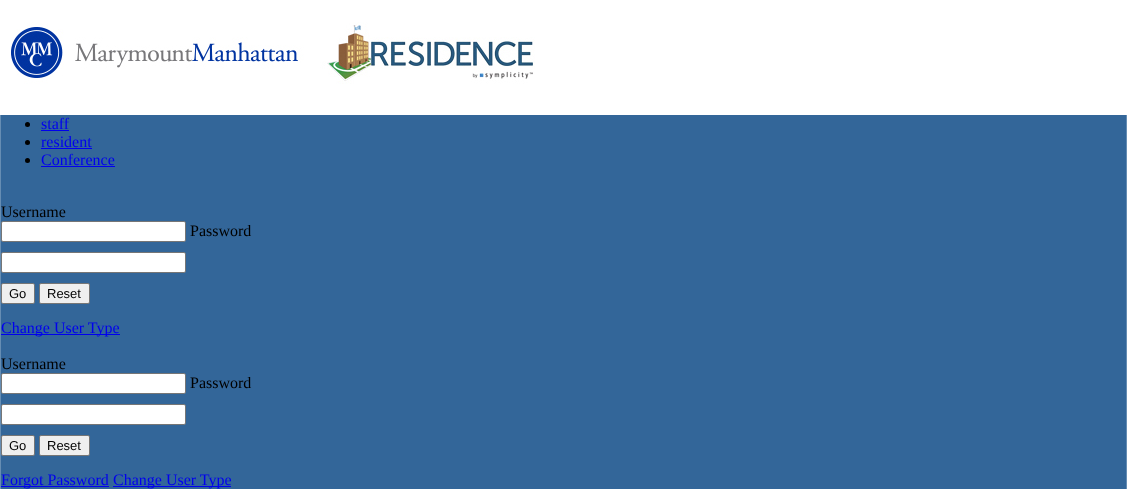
<!DOCTYPE html>
<meta charset="utf-8">
<style>body { margin: 0 } canvas { display: block }</style>
<canvas id="canvas" width="1127" height="489"></canvas>
<img id="img1" src="images/1.png" hidden>
<script>
window.onload = function () {
    const canvas = document.getElementById('canvas');
    const context = canvas.getContext('2d');
    context.miterLimit = 4;
    context.fontKerning = 'normal';

    context.fillStyle = 'rgb(255, 255, 255)';
    context.fillRect(0, 0, 1127, 489);
    context.drawImage(document.getElementById('img1'), 11, 22, 524, 62);
    context.fillStyle = 'rgb(51, 102, 153)';
    context.fillRect(1, 115, 1125, 374);
    context.fillStyle = 'rgb(102, 141, 179)';
    context.fillRect(1126, 115, 1, 374);
    context.fillRect(0, 115, 1, 374);
    context.fillStyle = 'rgb(0, 0, 0)';
    context.beginPath();
    context.arc(27.5, 124.5, 2.5, 0, 2 * Math.PI);
    context.fill();
    context.fillStyle = 'rgb(0, 0, 238)';
    context.fillRect(41, 130, 28, 1);
    context.fillStyle = 'rgb(0, 0, 0)';
    context.beginPath();
    context.arc(27.5, 142.5, 2.5, 0, 2 * Math.PI);
    context.fill();
    context.fillStyle = 'rgb(0, 0, 238)';
    context.fillRect(41, 148, 51, 1);
    context.fillStyle = 'rgb(0, 0, 0)';
    context.beginPath();
    context.arc(27.5, 160.5, 2.5, 0, 2 * Math.PI);
    context.fill();
    context.fillStyle = 'rgb(0, 0, 238)';
    context.fillRect(41, 166, 74, 1);
    context.fillStyle = 'rgb(255, 255, 255)';
    context.beginPath();
    context.roundRect(1.5, 221.5, 184, 20, 1.5);
    context.fill();
    context.strokeStyle = 'rgb(118, 118, 118)';
    context.stroke();
    context.beginPath();
    context.roundRect(1.5, 252.5, 184, 20, 1.5);
    context.fill();
    context.stroke();
    context.fillStyle = 'rgb(239, 239, 239)';
    context.beginPath();
    context.roundRect(1.5, 283.5, 33, 20, 1.5);
    context.fill();
    context.stroke();
    context.beginPath();
    context.roundRect(39.5, 283.5, 50, 20, 1.5);
    context.fill();
    context.stroke();
    context.fillStyle = 'rgb(0, 0, 238)';
    context.fillRect(1, 334, 119, 1);
    context.fillStyle = 'rgb(255, 255, 255)';
    context.beginPath();
    context.roundRect(1.5, 373.5, 184, 20, 1.5);
    context.fill();
    context.stroke();
    context.beginPath();
    context.roundRect(1.5, 404.5, 184, 20, 1.5);
    context.fill();
    context.stroke();
    context.fillStyle = 'rgb(239, 239, 239)';
    context.beginPath();
    context.roundRect(1.5, 435.5, 33, 20, 1.5);
    context.fill();
    context.stroke();
    context.beginPath();
    context.roundRect(39.5, 435.5, 50, 20, 1.5);
    context.fill();
    context.stroke();
    context.fillStyle = 'rgb(0, 0, 238)';
    context.fillRect(1, 486, 108, 1);
    context.fillRect(113, 486, 118, 1);
    context.font = '16px Liberation Serif';
    context.fillText('staff', 41, 129);
    context.fillText('resident', 41, 147);
    context.fillText('Conference', 41, 165);
    context.fillStyle = 'rgb(0, 0, 0)';
    context.fillText('Username', 1, 217);
    context.fillText('Password', 190, 236);
    context.font = '13px Liberation Sans';
    context.fillText('Go', 9, 298);
    context.fillText('Reset', 47, 298);
    context.font = '16px Liberation Serif';
    context.fillStyle = 'rgb(0, 0, 238)';
    context.fillText('Change User Type', 1, 333);
    context.fillStyle = 'rgb(0, 0, 0)';
    context.fillText('Username', 1, 369);
    context.fillText('Password', 190, 388);
    context.font = '13px Liberation Sans';
    context.fillText('Go', 9, 450);
    context.fillText('Reset', 47, 450);
    context.font = '16px Liberation Serif';
    context.fillStyle = 'rgb(0, 0, 238)';
    context.fillText('Forgot Password', 1, 485);
    context.fillText('Change User Type', 113, 485);
};
</script>
